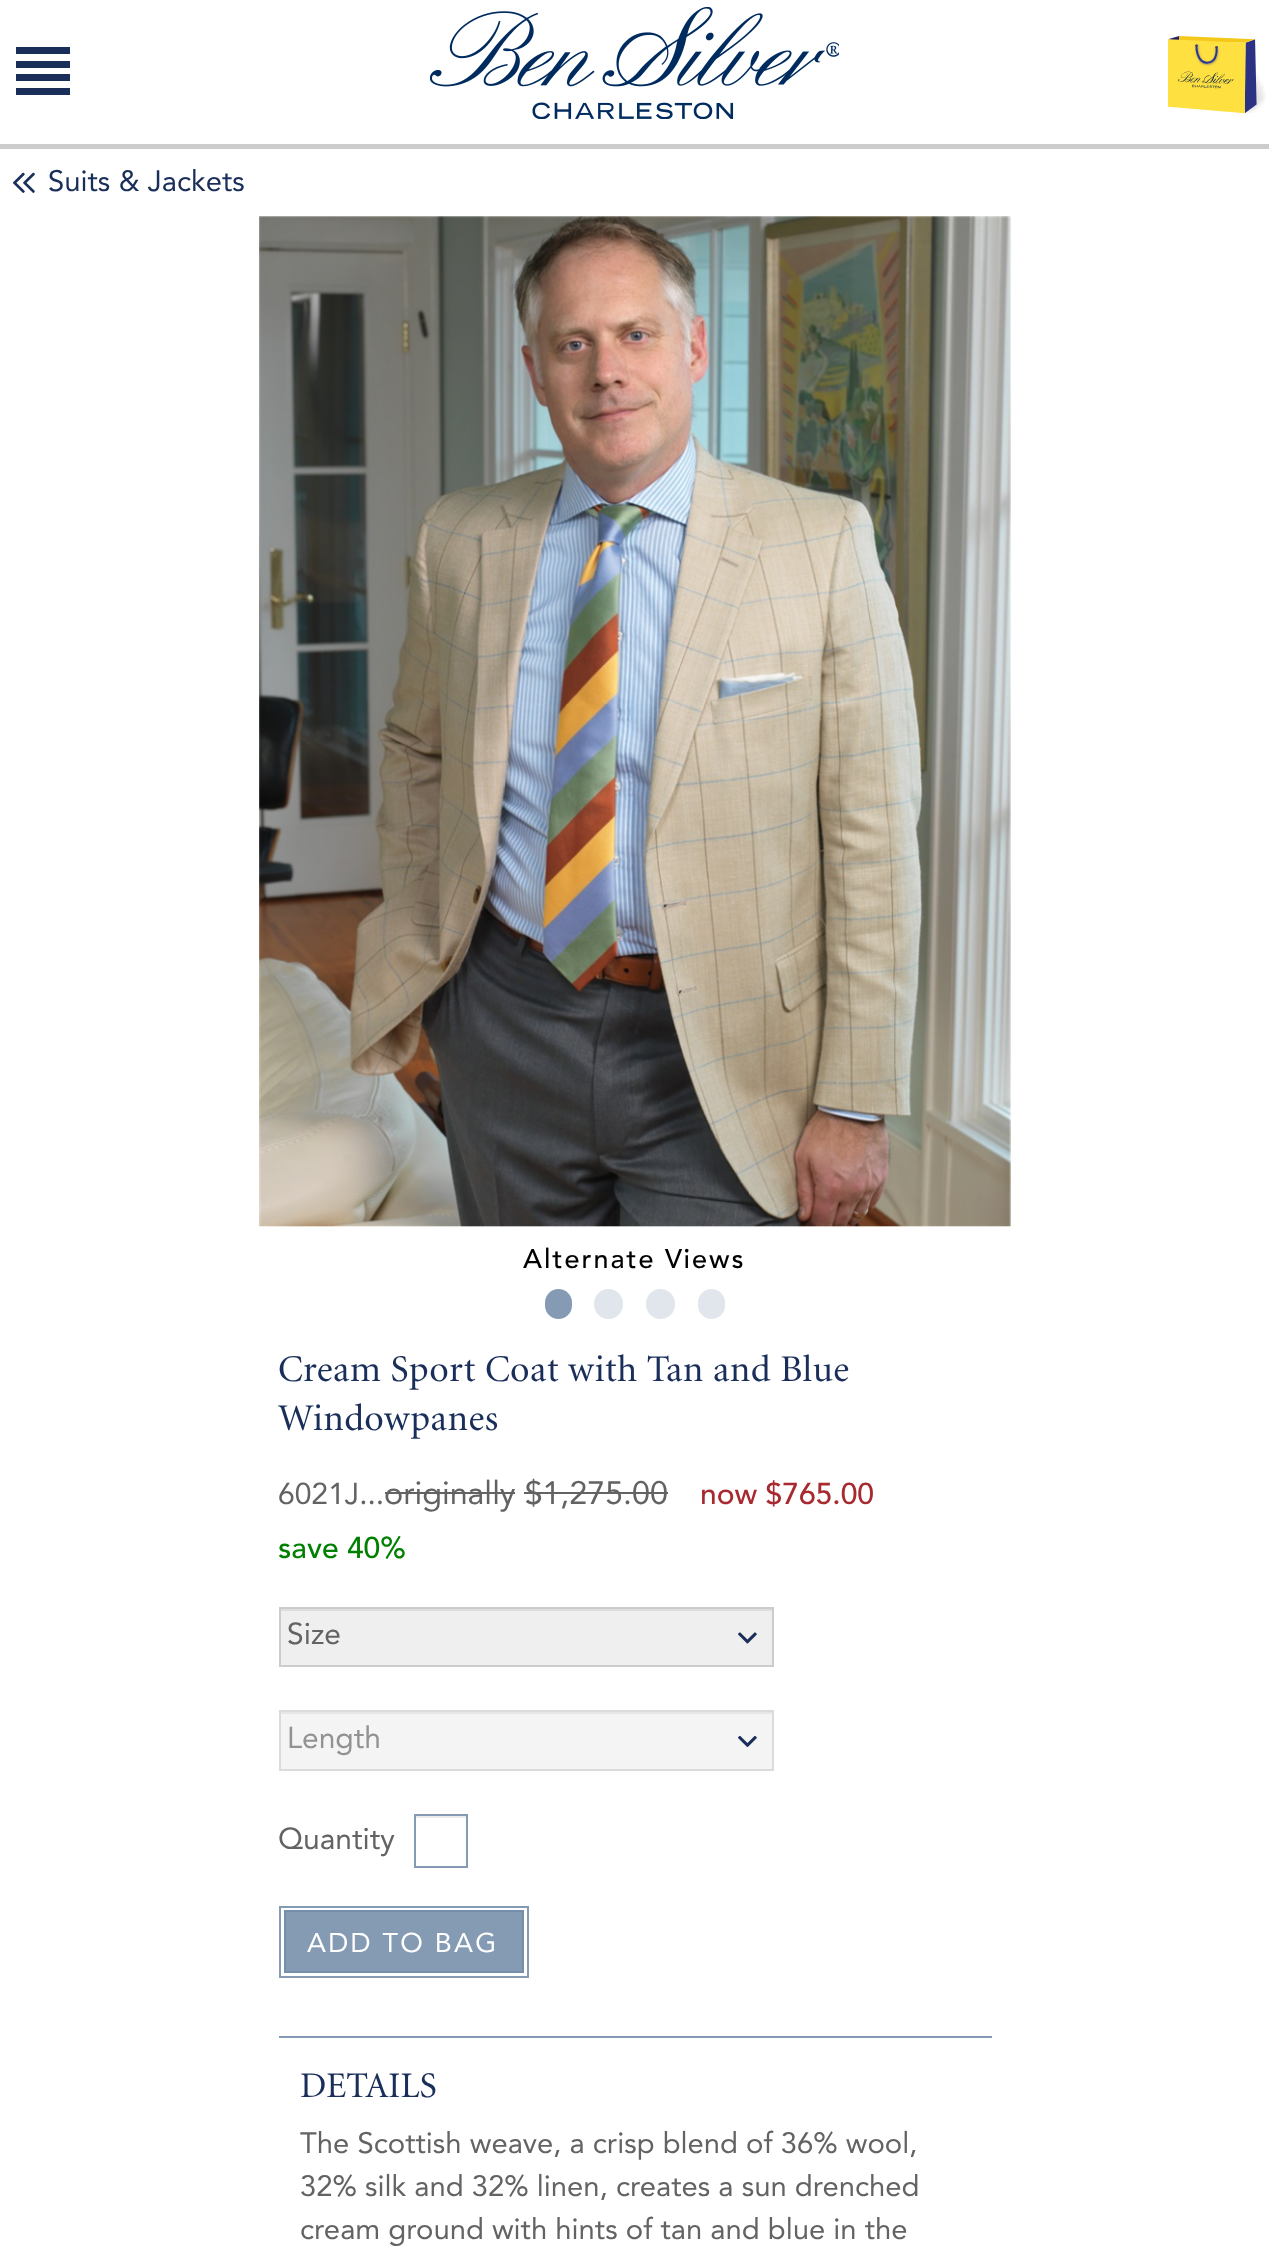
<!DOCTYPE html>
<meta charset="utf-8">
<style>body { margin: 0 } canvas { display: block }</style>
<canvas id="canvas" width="1269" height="2267"></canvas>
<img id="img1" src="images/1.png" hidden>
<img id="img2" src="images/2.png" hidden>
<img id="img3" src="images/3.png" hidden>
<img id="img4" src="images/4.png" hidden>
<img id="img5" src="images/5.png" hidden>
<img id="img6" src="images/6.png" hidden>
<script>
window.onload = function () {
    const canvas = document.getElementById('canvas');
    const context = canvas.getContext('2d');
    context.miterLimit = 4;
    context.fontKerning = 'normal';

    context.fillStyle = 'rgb(255, 255, 255)';
    context.fillRect(0, 0, 1269, 2267);
    context.fillStyle = 'rgb(204, 204, 204)';
    context.fillRect(0, 144, 1269, 5);
    context.fillStyle = 'rgb(26, 46, 90)';
    context.fillRect(16, 47, 54, 7);
    context.fillRect(16, 61, 54, 7);
    context.fillRect(16, 74, 54, 7);
    context.fillRect(16, 88, 54, 7);
    context.drawImage(document.getElementById('img1'), 430, 7, 409, 112);
    context.drawImage(document.getElementById('img2'), 1168, 36, 98, 78);
    context.drawImage(document.getElementById('img3'), 13, 172, 22, 21);
    context.drawImage(document.getElementById('img4'), 259, 216, 752, 1011);
    context.fillStyle = 'rgb(133, 155, 179)';
    context.beginPath();
    context.roundRect(545, 1289, 27, 30, 13.5);
    context.fill();
    context.fillStyle = 'rgb(224, 230, 236)';
    context.beginPath();
    context.roundRect(594, 1289, 29, 30, 14.5);
    context.fill();
    context.beginPath();
    context.roundRect(646, 1289, 29, 30, 14.5);
    context.fill();
    context.beginPath();
    context.roundRect(698, 1289, 27, 30, 13.5);
    context.fill();
    context.fillStyle = 'rgb(99, 99, 99)';
    context.fillRect(385, 1492, 130, 2);
    context.fillRect(524, 1492, 144, 2);
    context.fillStyle = 'rgb(239, 239, 239)';
    context.fillRect(281, 1611, 491, 54);
    context.fillStyle = 'rgb(221, 221, 221)';
    context.fillRect(281, 1609, 491, 2);
    context.strokeStyle = 'rgb(204, 204, 204)';
    context.lineWidth = 2;
    context.strokeRect(280, 1608, 493, 58);
    context.drawImage(document.getElementById('img5'), 738, 1632, 19, 12);
    context.fillStyle = 'rgb(244, 244, 244)';
    context.fillRect(281, 1714, 491, 55);
    context.fillStyle = 'rgb(231, 231, 231)';
    context.fillRect(281, 1712, 491, 2);
    context.strokeStyle = 'rgb(219, 219, 219)';
    context.strokeRect(280, 1711, 493, 59);
    context.drawImage(document.getElementById('img6'), 738, 1735, 19, 12);
    context.fillStyle = 'rgb(236, 236, 236)';
    context.fillRect(416, 1816, 50, 2);
    context.strokeStyle = 'rgb(133, 155, 179)';
    context.strokeRect(415, 1815, 52, 52);
    context.strokeRect(280, 1907, 248, 70);
    context.fillStyle = 'rgb(133, 155, 179)';
    context.beginPath();
    context.rect(285, 1911, 238, 61);
    context.fill();
    context.strokeStyle = 'rgb(117, 142, 169)';
    context.stroke();
    context.fillRect(279, 2036, 713, 2);
    context.font = '29.25px Avenir';
    context.fillStyle = 'rgb(26, 46, 90)';
    context.fillText('Suits & Jackets', 48, 191);
    context.letterSpacing = '2px';
    context.font = '500 27px Avenir';
    context.fillStyle = 'rgb(0, 0, 0)';
    context.fillText('Alternate Views', 523, 1268);
    context.letterSpacing = '0.4px';
    context.font = '37.75px Minion';
    context.fillStyle = 'rgb(26, 46, 90)';
    context.fillText('Cream Sport Coat with Tan and Blue', 278, 1381);
    context.fillText('Windowpanes', 278, 1430);
    context.letterSpacing = '0px';
    context.font = '32.25px Avenir';
    context.fillStyle = 'rgb(99, 99, 99)';
    context.fillText('originally $1,275.00', 384, 1504);
    context.font = '500 30px Avenir';
    context.fillStyle = 'rgb(167, 42, 48)';
    context.fillText('now $765.00', 700, 1504);
    context.fillStyle = 'rgb(0, 128, 0)';
    context.fillText('save 40%', 278, 1558);
    context.font = '30px Avenir';
    context.fillStyle = 'rgb(99, 99, 99)';
    context.fillText('6021J...', 278, 1504);
    context.fillText('Size', 287, 1644);
    context.fillStyle = 'rgb(146, 146, 146)';
    context.fillText('Length', 287, 1748);
    context.fillStyle = 'rgb(99, 99, 99)';
    context.fillText('Quantity', 278, 1849);
    context.letterSpacing = '2.25px';
    context.font = '27px Avenir';
    context.fillStyle = 'rgb(255, 255, 255)';
    context.fillText('ADD TO BAG', 307, 1952);
    context.letterSpacing = '0px';
    context.font = '36px Minion';
    context.fillStyle = 'rgb(26, 46, 90)';
    context.fillText('DETAILS', 300, 2097);
    context.font = '29.25px Avenir';
    context.fillStyle = 'rgb(99, 99, 99)';
    context.fillText('The Scottish weave, a crisp blend of 36% wool,', 300, 2153);
    context.fillText('32% silk and 32% linen, creates a sun drenched', 300, 2196);
    context.fillText('cream ground with hints of tan and blue in the', 300, 2239);
};
</script>
